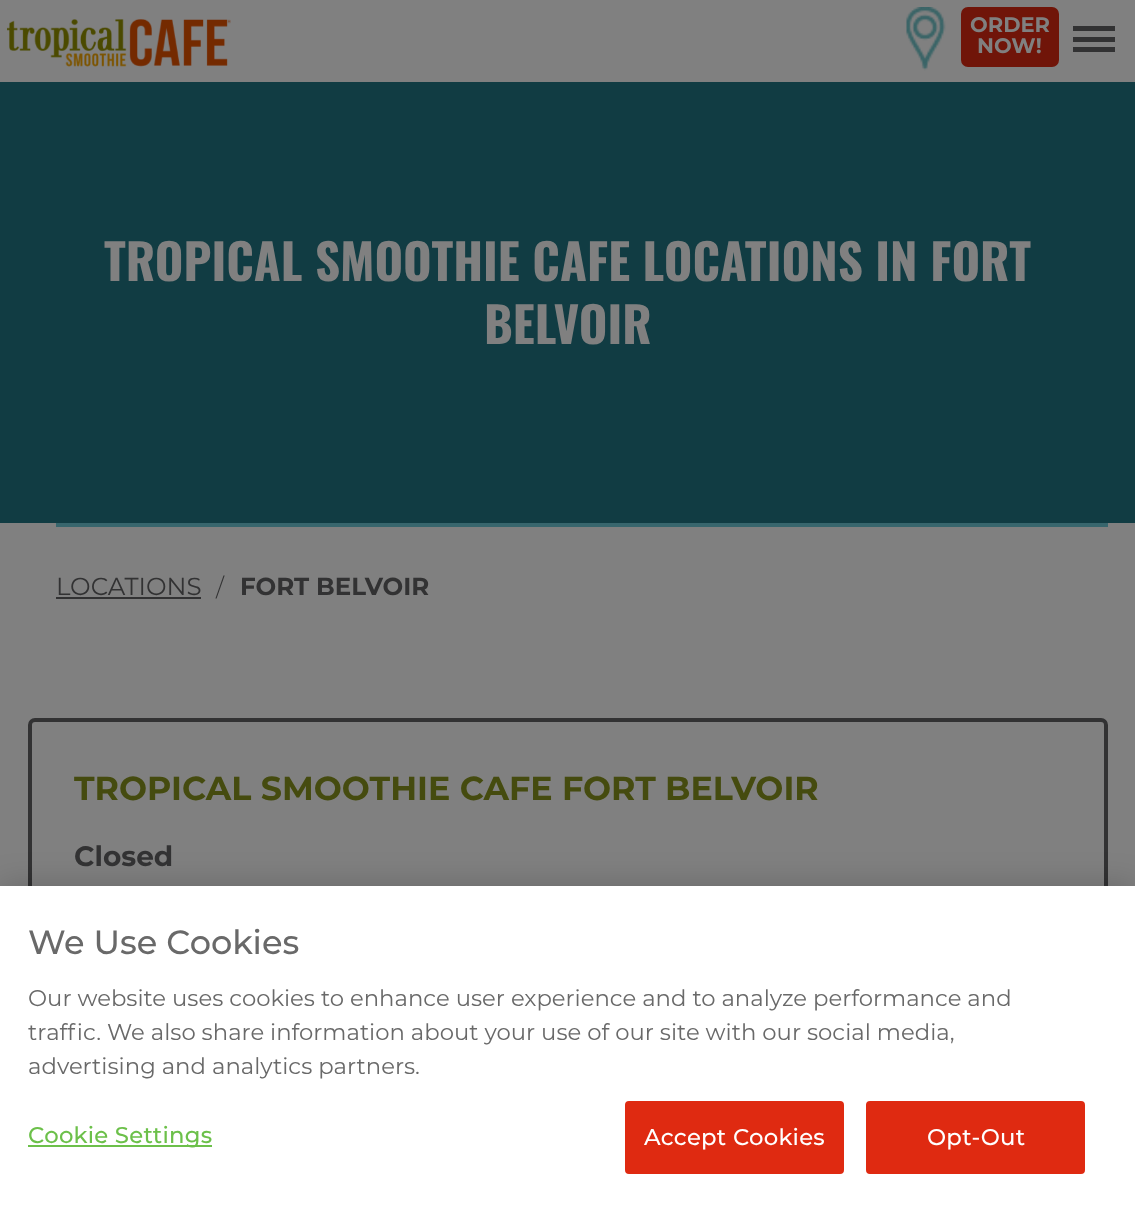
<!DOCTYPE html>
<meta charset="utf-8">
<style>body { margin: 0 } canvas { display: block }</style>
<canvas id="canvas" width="1135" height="1209"></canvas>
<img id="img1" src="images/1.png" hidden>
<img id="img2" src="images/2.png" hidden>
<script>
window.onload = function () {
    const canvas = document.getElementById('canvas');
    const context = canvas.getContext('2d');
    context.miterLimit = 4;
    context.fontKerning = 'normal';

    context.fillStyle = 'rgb(128, 128, 128)';
    context.fillRect(0, 0, 1135, 1209);
    context.drawImage(document.getElementById('img1'), 906, 7, 40, 64);
    context.fillStyle = 'rgb(112, 21, 9)';
    context.beginPath();
    context.roundRect(962, 8, 96, 58, 6);
    context.fill();
    context.strokeStyle = 'rgb(112, 21, 9)';
    context.lineWidth = 2;
    context.stroke();
    context.drawImage(document.getElementById('img2'), 7, 19, 224, 48);
    context.fillStyle = 'rgb(50, 50, 51)';
    context.fillRect(1073, 26, 42, 5);
    context.fillRect(1073, 37, 42, 5);
    context.fillRect(1073, 47, 42, 5);
    context.fillStyle = 'rgb(17, 60, 67)';
    context.fillRect(0, 82, 1135, 441);
    context.fillStyle = 'rgb(56, 102, 109)';
    context.fillRect(56, 523, 1052, 4);
    context.fillStyle = 'rgb(50, 50, 51)';
    context.fillRect(56, 597, 145, 2);
    context.beginPath();
    context.roundRect(30, 720, 1076, 293, 5);
    context.strokeStyle = 'rgb(50, 50, 51)';
    context.lineWidth = 4;
    context.stroke();
    context.fillStyle = 'rgba(0, 0, 0, 0.2)';
    context.filter = 'blur(16px)';
    context.beginPath();
    context.rect(0, 886, 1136, 323);
    context.fill();
    context.filter = 'none';
    context.fillStyle = 'rgb(255, 255, 255)';
    context.fillRect(0, 886, 1135, 323);
    context.fillStyle = 'rgb(108, 192, 74)';
    context.fillRect(28, 1145, 184, 2);
    context.fillStyle = 'rgb(223, 42, 17)';
    context.beginPath();
    context.roundRect(626, 1102, 217, 71, 3);
    context.fill();
    context.strokeStyle = 'rgb(223, 42, 17)';
    context.lineWidth = 2;
    context.stroke();
    context.beginPath();
    context.roundRect(867, 1102, 217, 71, 3);
    context.fill();
    context.stroke();
    context.font = 'bold 21px Montserrat';
    context.fillStyle = 'rgb(128, 128, 128)';
    context.fillText('ORDER', 970, 32);
    context.fillText('NOW!', 977, 53);
    context.font = 'bold 49px Oswald';
    context.fillText('TROPICAL SMOOTHIE CAFE LOCATIONS IN FORT', 104, 281);
    context.fillText('BELVOIR', 484, 344);
    context.font = '24.5px Montserrat';
    context.fillStyle = 'rgb(50, 50, 51)';
    context.fillText('LOCATIONS', 56, 595);
    context.font = '300 24.5px Montserrat';
    context.fillText('/', 216, 596);
    context.font = 'bold 24.5px Montserrat';
    context.fillText('FORT BELVOIR', 240, 595);
    context.font = 'bold 33.25px Montserrat';
    context.fillStyle = 'rgb(69, 75, 15)';
    context.fillText('TROPICAL SMOOTHIE CAFE FORT BELVOIR', 74, 800);
    context.font = 'bold 28px Montserrat';
    context.fillStyle = 'rgb(50, 50, 51)';
    context.fillText('Closed', 74, 866);
    context.font = '500 33.5px Montserrat';
    context.fillStyle = 'rgb(105, 105, 105)';
    context.fillText('We Use Cookies', 28, 954);
    context.font = '22.75px Montserrat';
    context.fillText('Our website uses cookies to enhance user experience and to analyze performance and', 28, 1006);
    context.fillText('traffic. We also share information about your use of our site with our social media,', 28, 1040);
    context.fillText('advertising and analytics partners.', 28, 1074);
    context.letterSpacing = '0.25px';
    context.font = '500 22.75px Montserrat';
    context.fillStyle = 'rgb(108, 192, 74)';
    context.fillText('Cookie Settings', 28, 1143);
    context.fillStyle = 'rgb(255, 255, 255)';
    context.fillText('Accept Cookies', 644, 1145);
    context.fillText('Opt-Out', 927, 1145);
};
</script>
